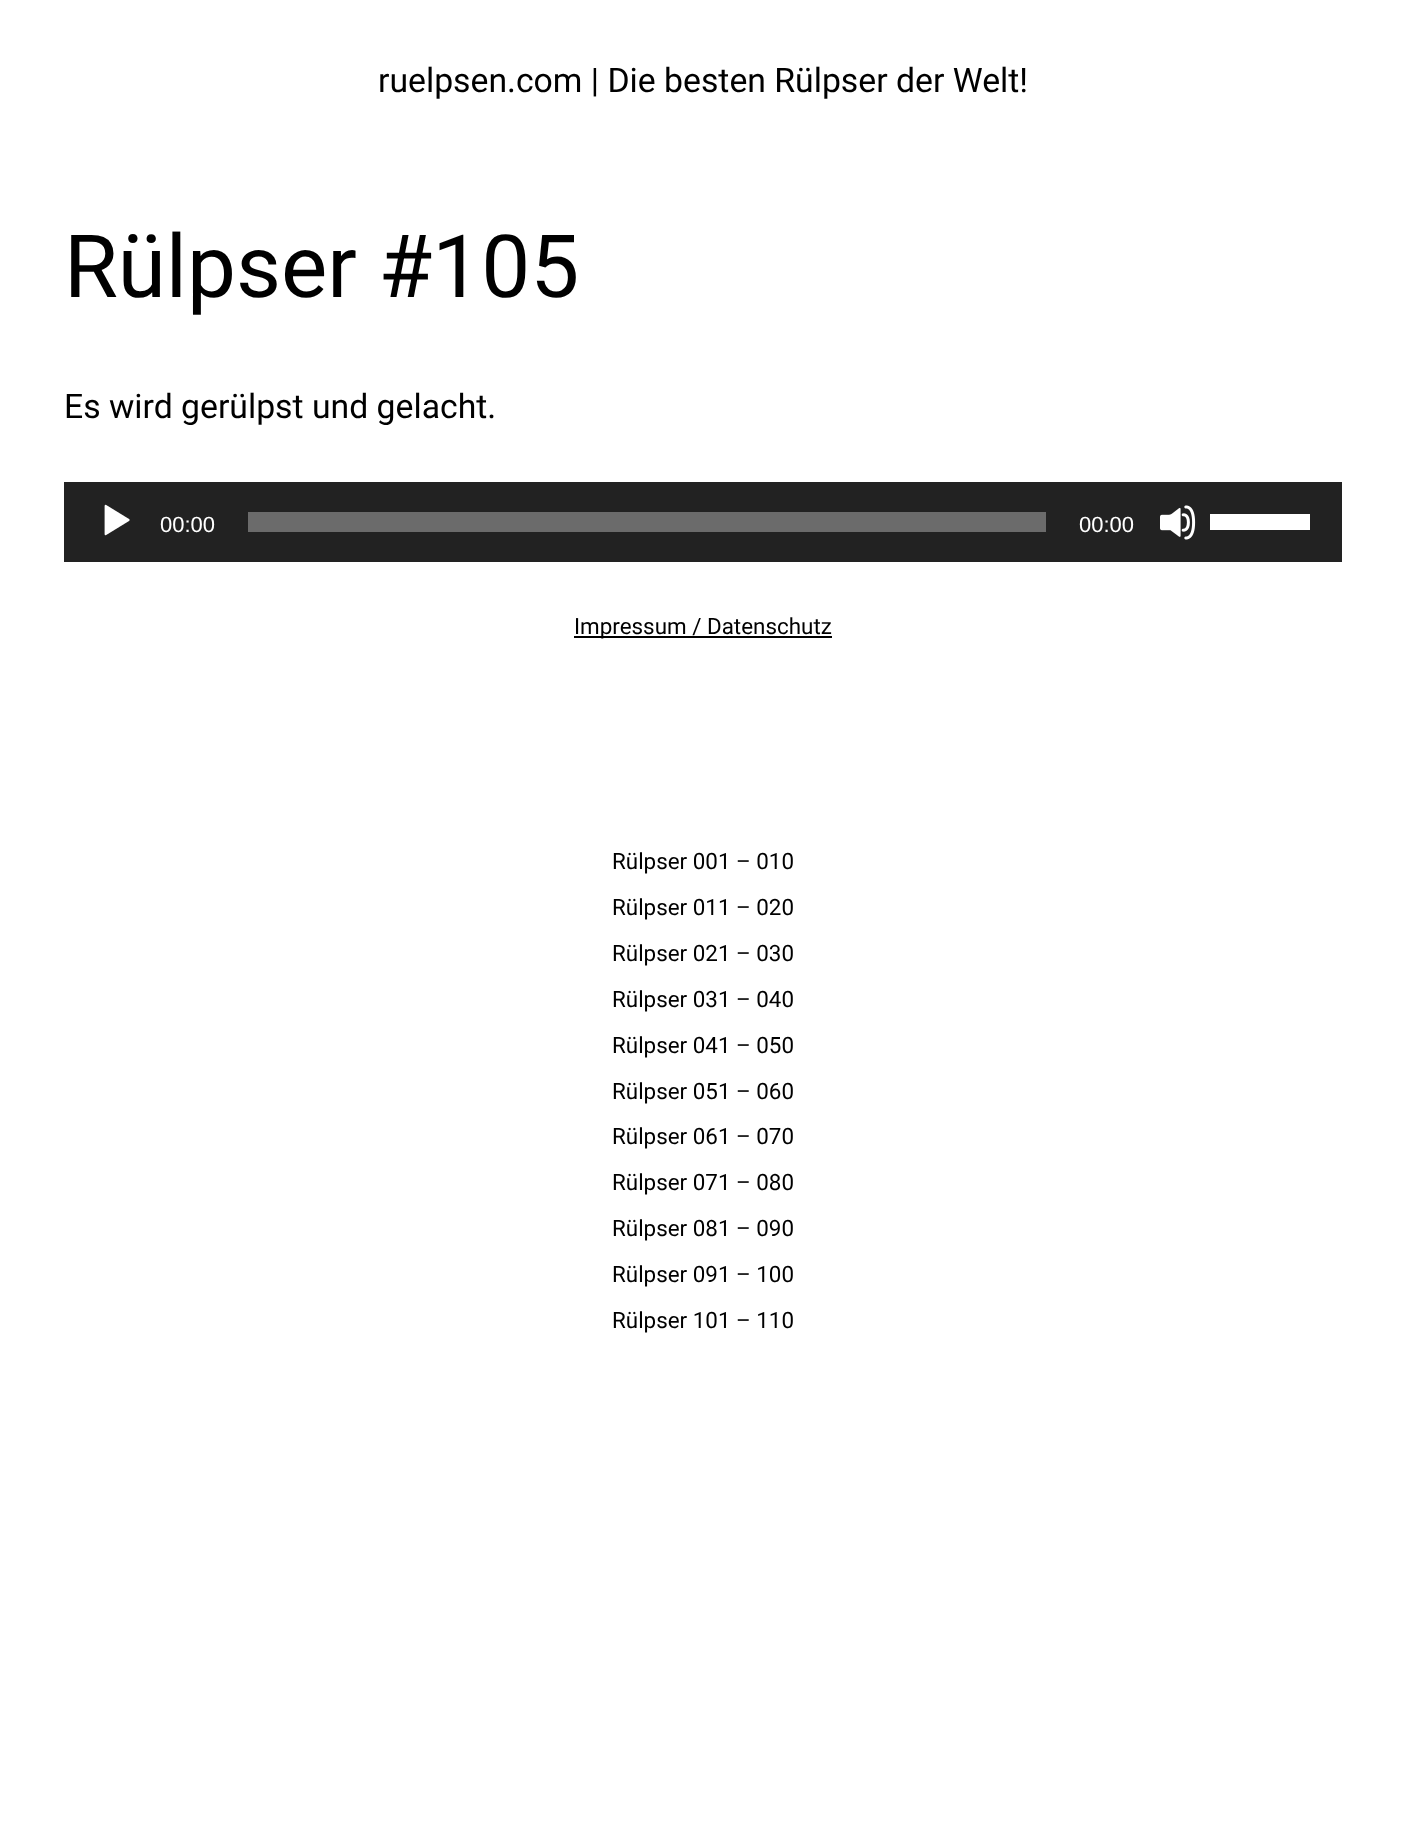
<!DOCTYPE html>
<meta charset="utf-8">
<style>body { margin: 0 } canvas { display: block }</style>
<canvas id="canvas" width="1406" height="1826"></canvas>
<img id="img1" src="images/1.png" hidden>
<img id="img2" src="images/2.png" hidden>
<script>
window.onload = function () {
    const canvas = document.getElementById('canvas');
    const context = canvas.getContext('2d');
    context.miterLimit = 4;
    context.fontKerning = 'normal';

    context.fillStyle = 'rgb(255, 255, 255)';
    context.fillRect(0, 0, 1406, 1826);
    context.fillStyle = 'rgb(34, 34, 34)';
    context.fillRect(64, 482, 1278, 80);
    context.drawImage(document.getElementById('img1'), 104, 504, 26, 32);
    context.fillStyle = 'rgb(107, 107, 107)';
    context.fillRect(248, 512, 798, 20);
    context.drawImage(document.getElementById('img2'), 1160, 505, 36, 35);
    context.fillStyle = 'rgb(255, 255, 255)';
    context.fillRect(1210, 514, 100, 16);
    context.fillStyle = 'rgb(0, 0, 0)';
    context.fillRect(574, 636, 258, 2);
    context.font = '33.75px Roboto';
    context.fillText('ruelpsen.com | Die besten Rülpser der Welt!', 378, 92);
    context.font = '87.25px Roboto';
    context.fillText('Rülpser #105', 64, 297);
    context.font = '33.75px Roboto';
    context.fillText('Es wird gerülpst und gelacht.', 64, 418);
    context.font = '22px Liberation Sans';
    context.fillStyle = 'rgb(255, 255, 255)';
    context.fillText('00:00', 160, 532);
    context.fillText('00:00', 1079, 532);
    context.font = '22.4px Roboto';
    context.fillStyle = 'rgb(0, 0, 0)';
    context.fillText('Impressum / Datenschutz', 574, 634);
    context.fillText('Rülpser 001 – 010', 612, 869);
    context.fillText('Rülpser 011 – 020', 612, 915);
    context.fillText('Rülpser 021 – 030', 612, 961);
    context.fillText('Rülpser 031 – 040', 612, 1007);
    context.fillText('Rülpser 041 – 050', 612, 1053);
    context.fillText('Rülpser 051 – 060', 612, 1099);
    context.fillText('Rülpser 061 – 070', 612, 1144);
    context.fillText('Rülpser 071 – 080', 612, 1190);
    context.fillText('Rülpser 081 – 090', 612, 1236);
    context.fillText('Rülpser 091 – 100', 612, 1282);
    context.fillText('Rülpser 101 – 110', 612, 1328);
};
</script>
